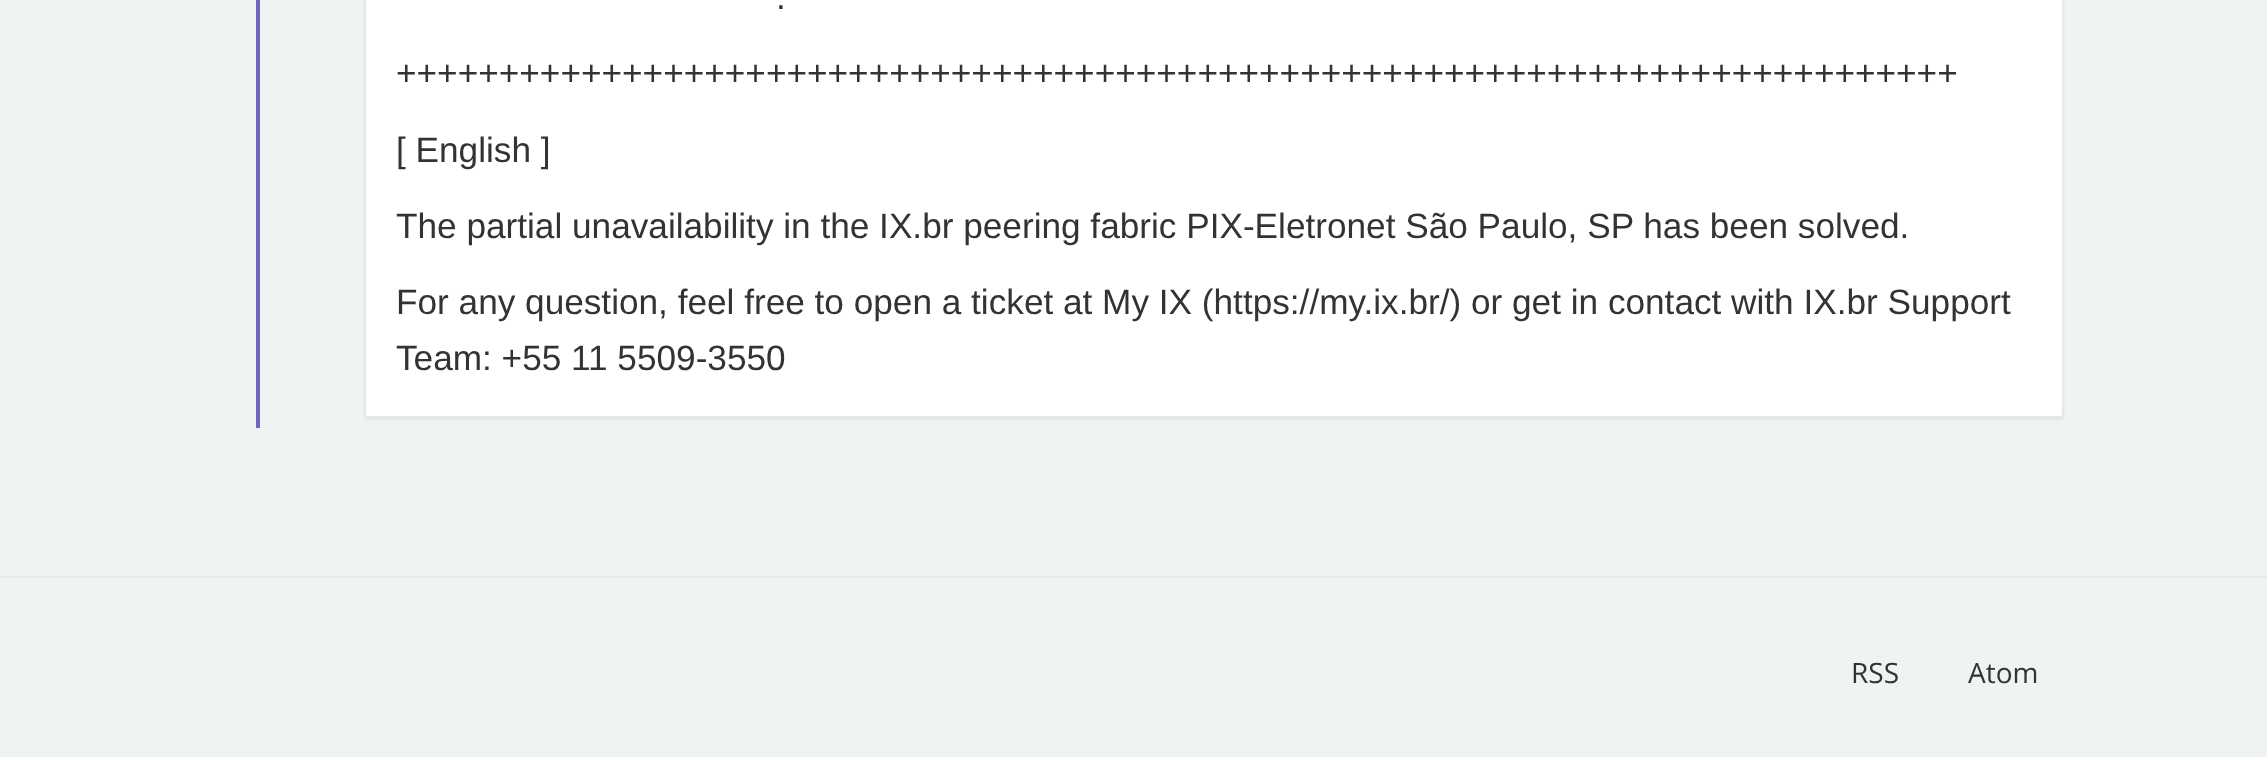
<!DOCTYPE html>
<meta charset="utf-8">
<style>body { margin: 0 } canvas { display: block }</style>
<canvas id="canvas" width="2267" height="757"></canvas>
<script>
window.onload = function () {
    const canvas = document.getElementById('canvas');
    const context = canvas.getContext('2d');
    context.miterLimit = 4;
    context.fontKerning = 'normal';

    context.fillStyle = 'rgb(240, 243, 244)';
    context.fillRect(0, 0, 2267, 757);
    context.fillStyle = 'rgb(114, 102, 186)';
    context.fillRect(256, 0, 4, 428);
    context.fillStyle = 'rgba(0, 0, 0, 0.05)';
    context.filter = 'blur(1px)';
    context.beginPath();
    context.roundRect(364, -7, 1700, 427, 4);
    context.fill();
    context.filter = 'none';
    context.fillStyle = 'rgb(255, 255, 255)';
    context.beginPath();
    context.roundRect(365, -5, 1698, 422, 3);
    context.fill();
    context.strokeStyle = 'rgb(232, 232, 232)';
    context.lineWidth = 2;
    context.stroke();
    context.fillStyle = 'rgb(232, 232, 232)';
    context.fillRect(0, 576, 2267, 2);
    context.font = '35.2px Liberation Sans';
    context.fillStyle = 'rgb(51, 51, 51)';
    context.fillText('.', 776, 9);
    context.fillText('++++++++++++++++++++++++++++++++++++++++++++++++++++++++++++++++++++++++++++', 396, 85);
    context.fillText('[ English ]', 396, 162);
    context.fillText('The partial unavailability in the IX.br peering fabric PIX-Eletronet São Paulo, SP has been solved.', 396, 238);
    context.fillText('For any question, feel free to open a ticket at My IX (https://my.ix.br/) or get in contact with IX.br Support', 396, 314);
    context.fillText('Team: +55 11 5509-3550', 396, 370);
    context.font = '28px Open Sans';
    context.fillText('RSS', 1851, 683);
    context.fillText('Atom', 1968, 683);
};
</script>
